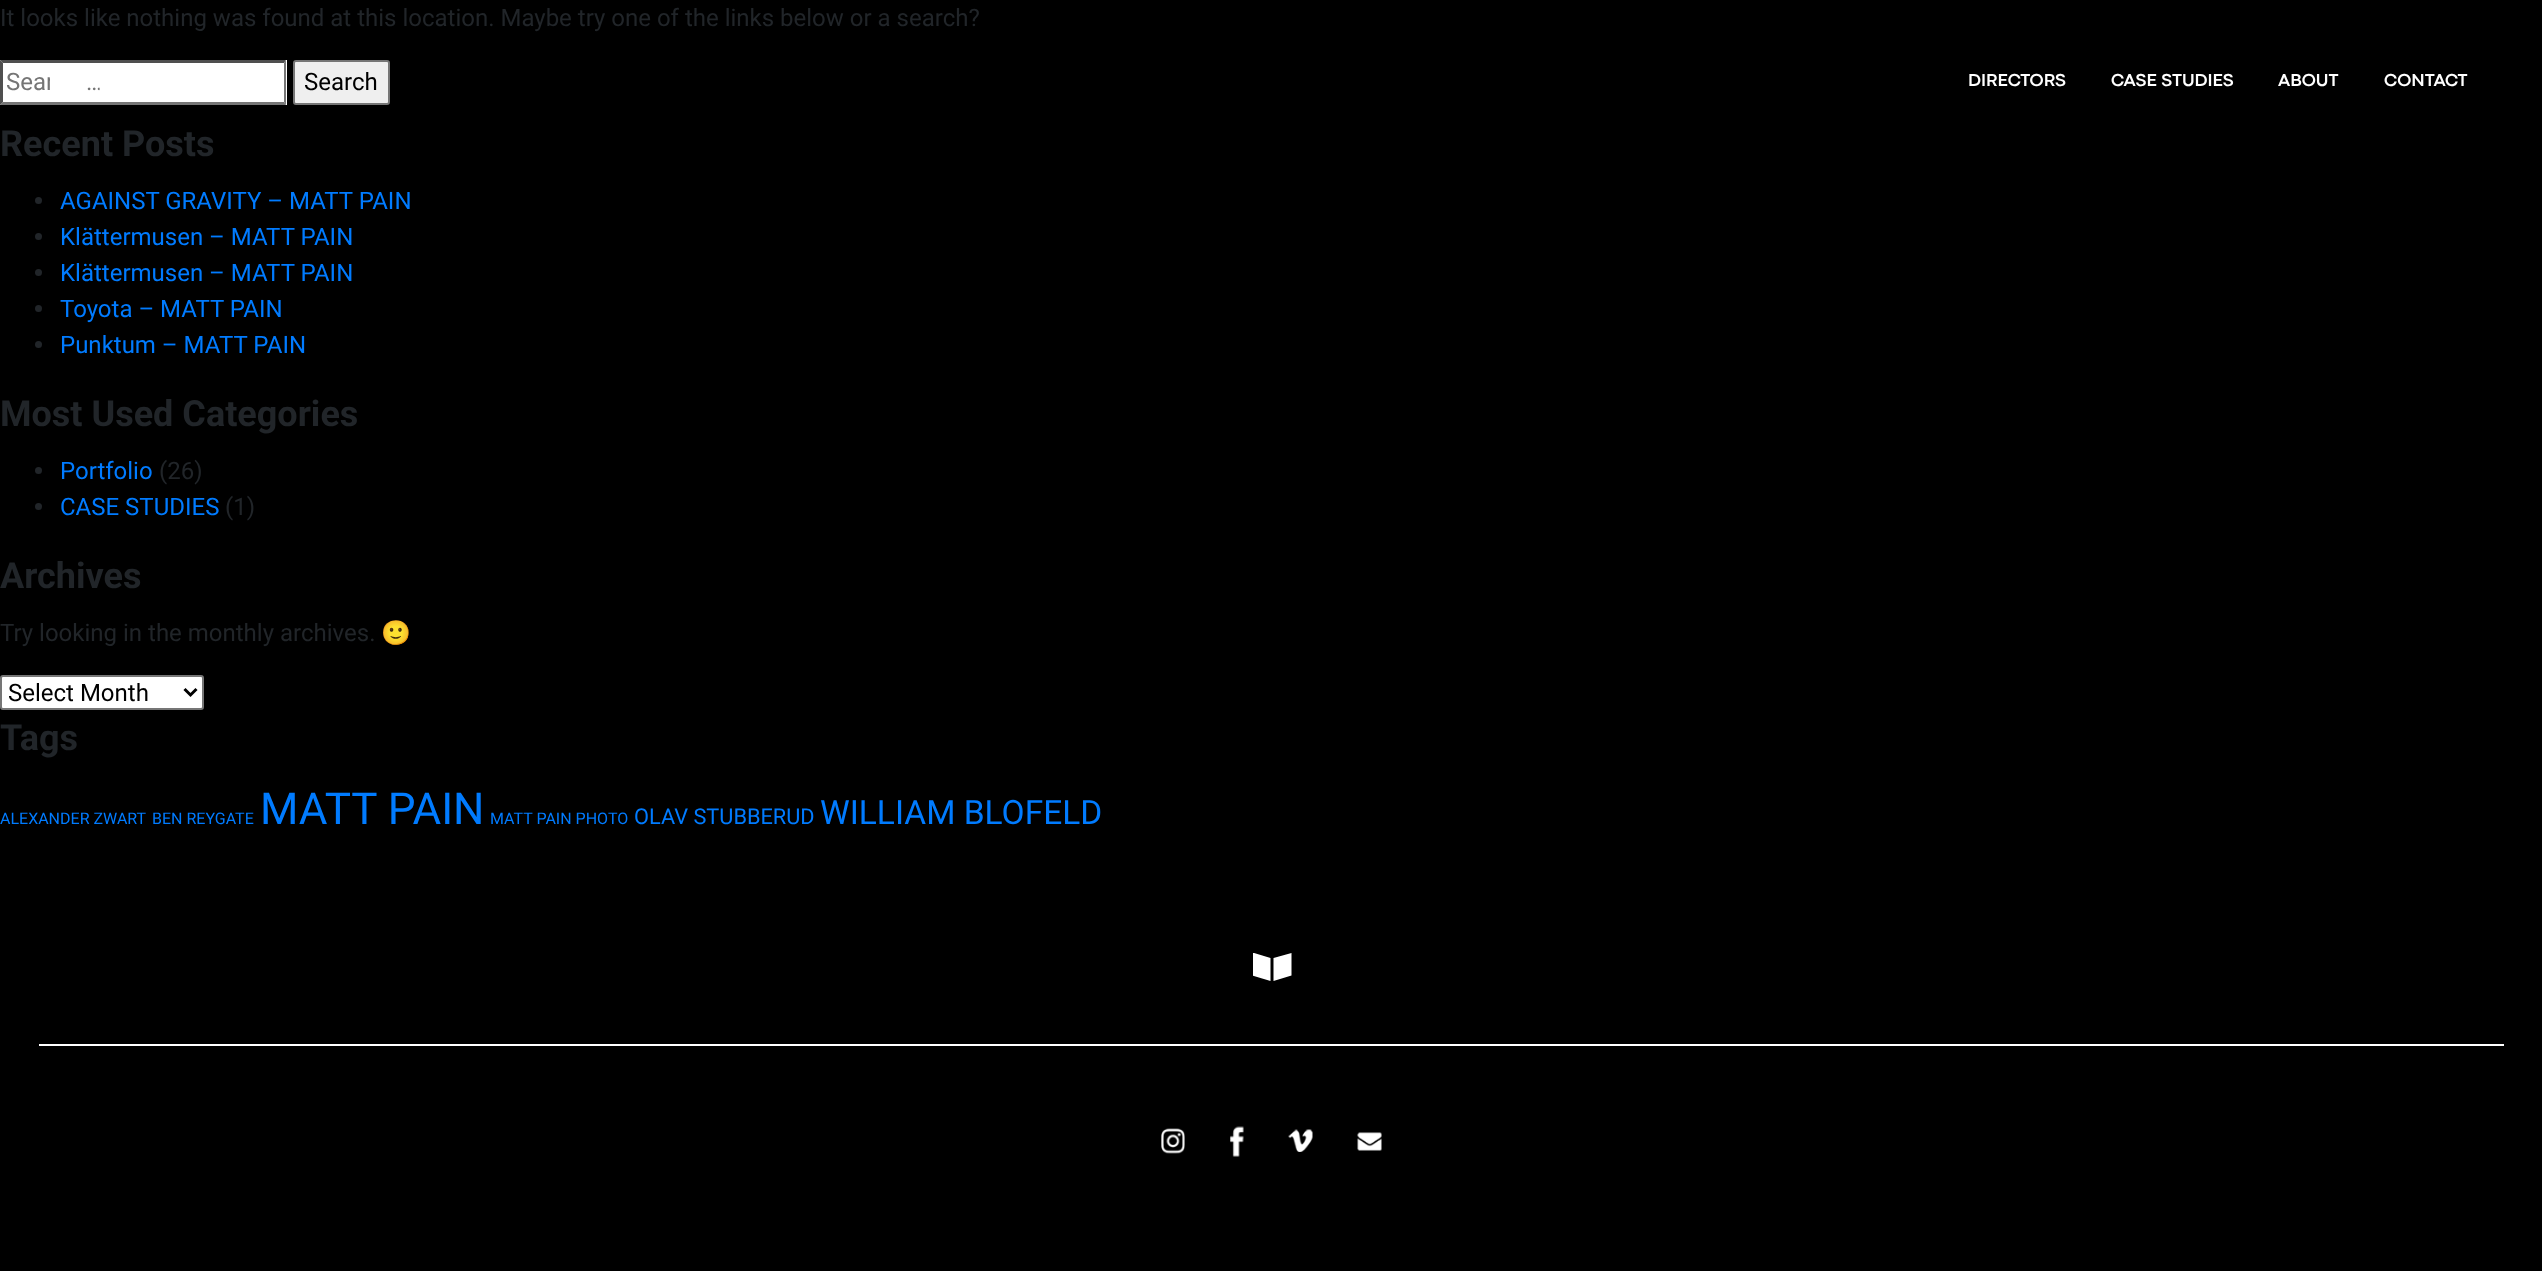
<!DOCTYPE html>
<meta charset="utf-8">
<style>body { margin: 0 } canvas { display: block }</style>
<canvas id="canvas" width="2542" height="1271"></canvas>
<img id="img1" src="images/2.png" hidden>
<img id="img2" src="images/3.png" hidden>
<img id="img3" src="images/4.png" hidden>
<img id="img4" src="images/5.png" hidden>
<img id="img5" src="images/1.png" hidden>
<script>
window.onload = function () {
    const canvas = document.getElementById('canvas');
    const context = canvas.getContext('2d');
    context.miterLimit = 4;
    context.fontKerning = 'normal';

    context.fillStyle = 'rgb(0, 0, 0)';
    context.fillRect(0, 0, 2542, 1271);
    context.fillStyle = 'rgb(255, 255, 255)';
    context.fillRect(0, 60, 287, 45);
    context.fillStyle = 'rgb(79, 79, 79)';
    context.beginPath();
    context.moveTo(0, 60);
    context.lineTo(286, 60);
    context.lineTo(284, 63);
    context.lineTo(3, 63);
    context.closePath();
    context.fill();
    context.fillStyle = 'rgb(118, 118, 118)';
    context.beginPath();
    context.moveTo(286, 60);
    context.lineTo(286, 105);
    context.lineTo(284, 102);
    context.lineTo(284, 63);
    context.closePath();
    context.fill();
    context.beginPath();
    context.moveTo(286, 105);
    context.lineTo(0, 105);
    context.lineTo(3, 102);
    context.lineTo(284, 102);
    context.closePath();
    context.fill();
    context.fillStyle = 'rgb(79, 79, 79)';
    context.beginPath();
    context.moveTo(0, 105);
    context.lineTo(0, 60);
    context.lineTo(3, 63);
    context.lineTo(3, 102);
    context.closePath();
    context.fill();
    context.fillStyle = 'rgb(239, 239, 239)';
    context.beginPath();
    context.roundRect(294, 61, 95, 43, 2);
    context.fill();
    context.strokeStyle = 'rgb(118, 118, 118)';
    context.lineWidth = 2;
    context.stroke();
    context.fillStyle = 'rgb(33, 37, 41)';
    context.beginPath();
    context.arc(38.5, 200.5, 3.5, 0, 2 * Math.PI);
    context.fill();
    context.beginPath();
    context.arc(38.5, 236.5, 3.5, 0, 2 * Math.PI);
    context.fill();
    context.beginPath();
    context.arc(38.5, 272.5, 3.5, 0, 2 * Math.PI);
    context.fill();
    context.beginPath();
    context.arc(38.5, 308.5, 3.5, 0, 2 * Math.PI);
    context.fill();
    context.beginPath();
    context.arc(38.5, 344.5, 3.5, 0, 2 * Math.PI);
    context.fill();
    context.beginPath();
    context.arc(38.5, 470.5, 3.5, 0, 2 * Math.PI);
    context.fill();
    context.beginPath();
    context.arc(38.5, 506.5, 3.5, 0, 2 * Math.PI);
    context.fill();
    context.fillStyle = 'rgb(255, 255, 255)';
    context.beginPath();
    context.roundRect(1, 676, 202, 33, 2);
    context.fill();
    context.stroke();
    context.beginPath();
    context.moveTo(184.5, 689);
    context.lineTo(190.5, 695);
    context.lineTo(196.5, 689);
    context.strokeStyle = 'rgb(0, 0, 0)';
    context.lineWidth = 3;
    context.stroke();
    context.save();
    context.beginPath();
    context.rect(1253, 953, 39, 28);
    context.clip();
    context.beginPath();
    context.moveTo(1252.5, 952.5);
    context.lineTo(1270.5, 958);
    context.lineTo(1270.5, 981);
    context.lineTo(1252.5, 975.5);
    context.closePath();
    context.fill();
    context.restore();
    context.beginPath();
    context.moveTo(1273.5, 958);
    context.lineTo(1291.5, 953);
    context.lineTo(1291.5, 975.5);
    context.lineTo(1273.5, 981);
    context.closePath();
    context.fill();
    context.fillRect(39, 1044, 2465, 2);
    context.drawImage(document.getElementById('img1'), 1161, 1128, 24, 26);
    context.drawImage(document.getElementById('img2'), 1230, 1126, 14, 31);
    context.drawImage(document.getElementById('img3'), 1288, 1129, 25, 23);
    context.drawImage(document.getElementById('img4'), 1357, 1132, 25, 19);
    context.font = '24px Roboto';
    context.fillStyle = 'rgb(33, 37, 41)';
    context.fillText('It looks like nothing was found at this location. Maybe try one of the links below or a search?', 0, 26);
    context.fillStyle = 'rgb(117, 117, 117)';
    context.fillText('Sear', 6, 90);
    context.fillText('…', 86, 90);
    context.fillStyle = 'rgb(0, 0, 0)';
    context.fillText('Search', 304, 90);
    context.font = 'bold 36px Roboto';
    context.fillStyle = 'rgb(33, 37, 41)';
    context.fillText('Recent Posts', 0, 156);
    context.font = '24px Roboto';
    context.fillStyle = 'rgb(0, 123, 255)';
    context.fillText('AGAINST GRAVITY – MATT PAIN', 60, 209);
    context.fillText('Klättermusen – MATT PAIN', 60, 245);
    context.fillText('Klättermusen – MATT PAIN', 60, 281);
    context.fillText('Toyota – MATT PAIN', 60, 317);
    context.fillText('Punktum – MATT PAIN', 60, 353);
    context.font = 'bold 36px Roboto';
    context.fillStyle = 'rgb(33, 37, 41)';
    context.fillText('Most Used Categories', 0, 426);
    context.font = '24px Roboto';
    context.fillStyle = 'rgb(0, 123, 255)';
    context.fillText('Portfolio', 60, 479);
    context.fillStyle = 'rgb(33, 37, 41)';
    context.fillText('(26)', 159, 479);
    context.fillStyle = 'rgb(0, 123, 255)';
    context.fillText('CASE STUDIES', 60, 515);
    context.fillStyle = 'rgb(33, 37, 41)';
    context.fillText('(1)', 225, 515);
    context.font = 'bold 36px Roboto';
    context.fillText('Archives', 0, 588);
    context.font = '24px Roboto';
    context.fillText('Try looking in the monthly archives.', 0, 641);
    context.font = '24px Noto Color Emoji';
    context.fillText('🙂', 381, 641);
    context.font = '24px Roboto';
    context.fillStyle = 'rgb(0, 0, 0)';
    context.fillText('Select Month', 8, 701);
    context.font = 'bold 36px Roboto';
    context.fillStyle = 'rgb(33, 37, 41)';
    context.fillText('Tags', 0, 750);
    context.font = '16px Roboto';
    context.fillStyle = 'rgb(0, 123, 255)';
    context.fillText('ALEXANDER ZWART', 0, 824);
    context.fillText('BEN REYGATE', 152, 824);
    context.font = '44px Roboto';
    context.fillText('MATT PAIN', 260, 824);
    context.font = '16px Roboto';
    context.fillText('MATT PAIN PHOTO', 490, 824);
    context.font = '21.75px Roboto';
    context.fillText('OLAV STUBBERUD', 634, 824);
    context.font = '33.5px Roboto';
    context.fillText('WILLIAM BLOFELD', 820, 824);
    context.drawImage(document.getElementById('img5'), 50, 72, 51, 19);
    context.font = 'bold 18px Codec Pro';
    context.fillStyle = 'rgb(255, 255, 255)';
    context.fillText('DIRECTORS', 1968, 86);
    context.fillText('CASE STUDIES', 2111, 86);
    context.fillText('ABOUT', 2278, 86);
    context.fillText('CONTACT', 2384, 86);
};
</script>
